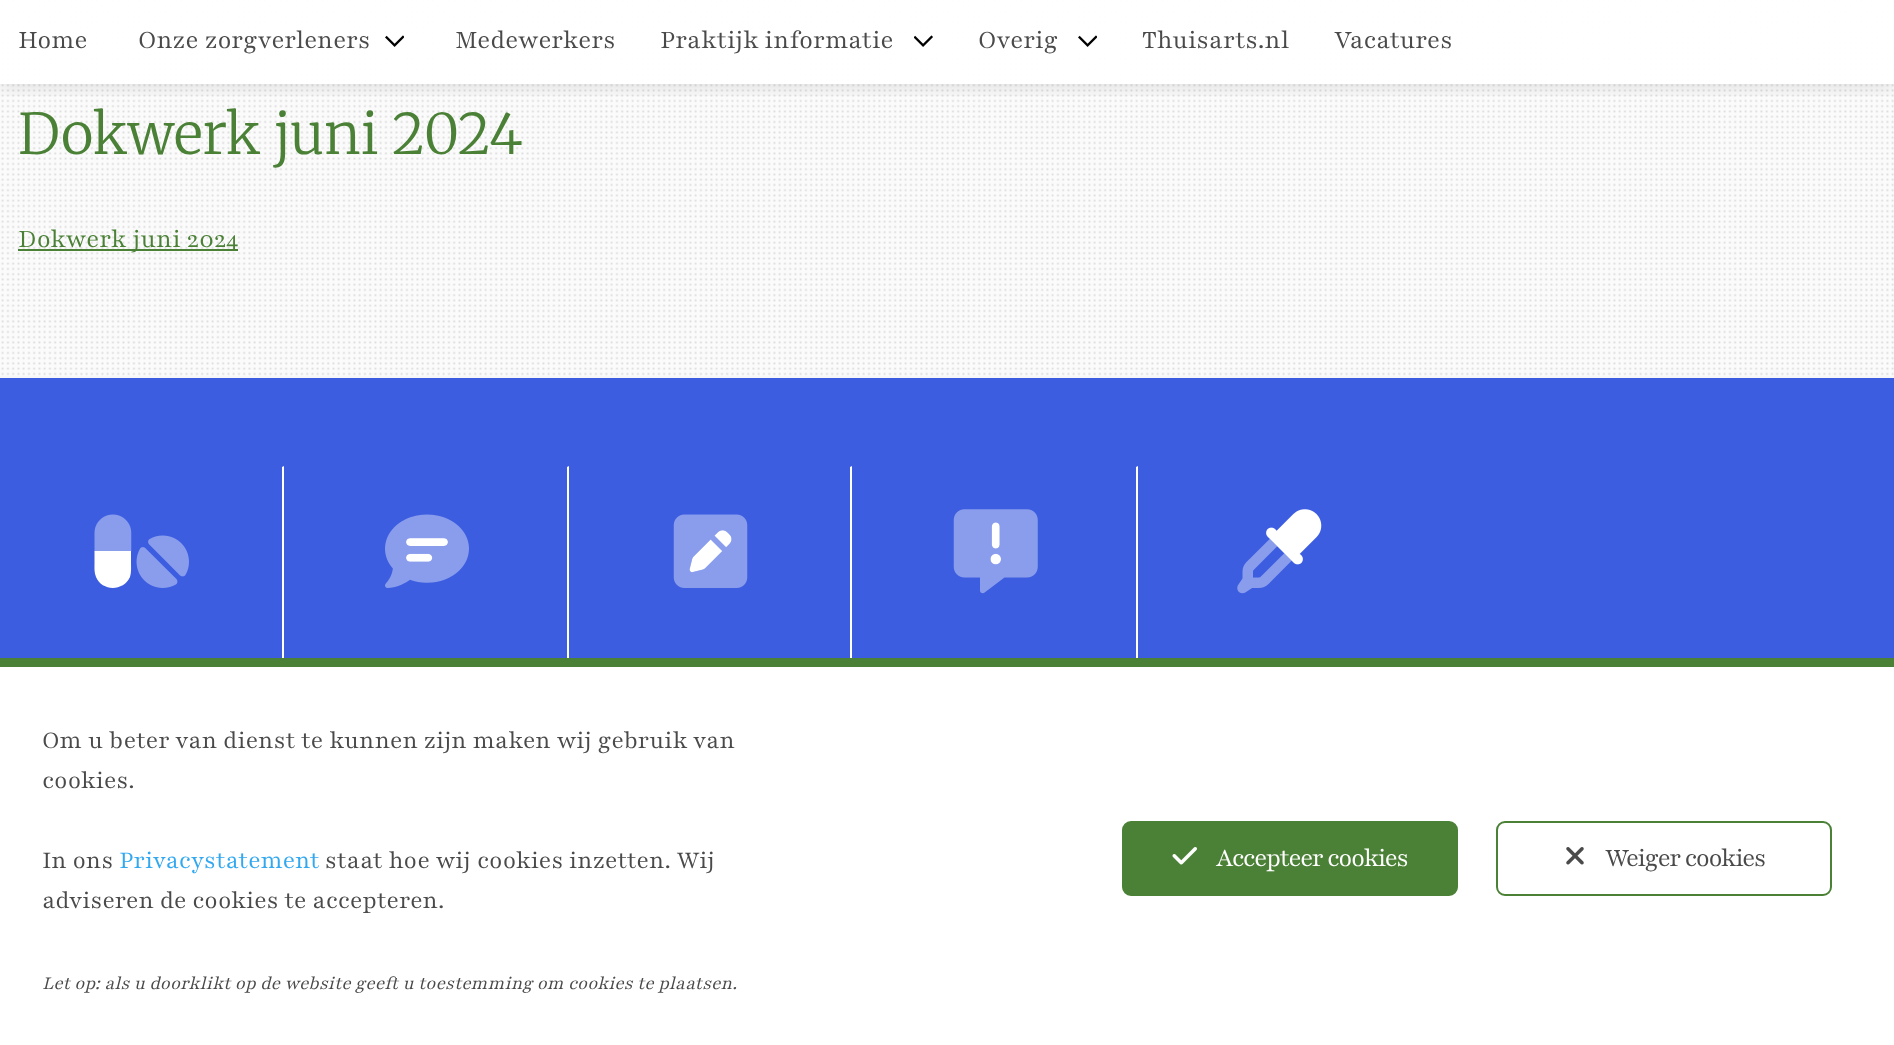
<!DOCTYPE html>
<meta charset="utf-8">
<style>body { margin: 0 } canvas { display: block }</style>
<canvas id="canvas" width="1894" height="1045"></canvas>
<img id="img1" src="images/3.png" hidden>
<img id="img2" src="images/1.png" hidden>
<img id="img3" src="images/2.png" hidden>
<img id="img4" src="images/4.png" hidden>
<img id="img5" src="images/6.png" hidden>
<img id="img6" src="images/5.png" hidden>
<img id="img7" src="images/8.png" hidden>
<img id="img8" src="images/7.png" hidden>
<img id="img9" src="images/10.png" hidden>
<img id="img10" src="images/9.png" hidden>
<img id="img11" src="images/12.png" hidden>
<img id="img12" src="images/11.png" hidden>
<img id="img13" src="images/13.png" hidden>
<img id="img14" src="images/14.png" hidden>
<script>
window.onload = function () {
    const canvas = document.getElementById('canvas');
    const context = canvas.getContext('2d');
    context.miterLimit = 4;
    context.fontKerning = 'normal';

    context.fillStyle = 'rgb(255, 255, 255)';
    context.fillRect(0, 0, 1894, 1045);
    context.drawImage(document.getElementById('img1'), 0, 0, 1894, 376);
    context.save();
    context.beginPath();
    context.rect(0, 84, 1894, 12);
    context.clip();
    context.fillStyle = 'rgba(0, 0, 0, 0.1)';
    context.filter = 'blur(9px)';
    context.beginPath();
    context.rect(0, 4, 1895, 84);
    context.fill();
    context.filter = 'none';
    context.restore();
    context.fillStyle = 'rgba(255, 255, 255, 0.95)';
    context.fillRect(0, 0, 1894, 84);
    context.drawImage(document.getElementById('img2'), 385, 35, 19, 12);
    context.drawImage(document.getElementById('img3'), 914, 35, 19, 12);
    context.drawImage(document.getElementById('img2'), 1078, 35, 19, 12);
    context.fillStyle = 'rgb(247, 247, 247)';
    context.fillRect(0, 376, 1894, 2);
    context.fillStyle = 'rgb(75, 129, 54)';
    context.fillRect(18, 249, 220, 2);
    context.fillStyle = 'rgb(60, 93, 224)';
    context.fillRect(0, 378, 1894, 280);
    context.fillStyle = 'rgb(255, 255, 255)';
    context.beginPath();
    context.moveTo(284, 466);
    context.lineTo(284, 808);
    context.lineTo(282, 807);
    context.lineTo(282, 467);
    context.closePath();
    context.fill();
    context.beginPath();
    context.moveTo(100, 551);
    context.lineTo(94.5, 551);
    context.lineTo(100, 551);
    context.lineTo(94.5, 551);
    context.lineTo(94.5, 563);
    context.bezierCurveTo(94.5, 567.5, 94, 572.5, 96, 577);
    context.bezierCurveTo(102, 591.5, 123.5, 591.5, 130, 577);
    context.bezierCurveTo(131.5, 572.5, 131, 567.5, 131, 563);
    context.lineTo(131, 551);
    context.closePath();
    context.fill();
    context.drawImage(document.getElementById('img4'), 94, 514, 95, 74);
    context.beginPath();
    context.moveTo(569, 466);
    context.lineTo(569, 808);
    context.lineTo(567, 807);
    context.lineTo(567, 467);
    context.closePath();
    context.fill();
    context.drawImage(document.getElementById('img5'), 406, 538, 42, 24);
    context.drawImage(document.getElementById('img6'), 385, 514, 84, 74);
    context.beginPath();
    context.moveTo(852, 466);
    context.lineTo(852, 808);
    context.lineTo(850, 807);
    context.lineTo(850, 467);
    context.closePath();
    context.fill();
    context.drawImage(document.getElementById('img7'), 689, 530, 43, 43);
    context.drawImage(document.getElementById('img8'), 673, 514, 75, 74);
    context.beginPath();
    context.moveTo(1138, 466);
    context.lineTo(1138, 808);
    context.lineTo(1136, 807);
    context.lineTo(1136, 467);
    context.closePath();
    context.fill();
    context.drawImage(document.getElementById('img9'), 990, 522, 11, 43);
    context.drawImage(document.getElementById('img10'), 953, 509, 85, 85);
    context.drawImage(document.getElementById('img11'), 1266, 509, 56, 56);
    context.drawImage(document.getElementById('img12'), 1237, 539, 55, 55);
    context.fillStyle = 'rgb(75, 129, 54)';
    context.fillRect(0, 658, 1894, 9);
    context.beginPath();
    context.roundRect(1123, 822, 334, 73, 8);
    context.fill();
    context.strokeStyle = 'rgb(75, 129, 54)';
    context.lineWidth = 2;
    context.stroke();
    context.drawImage(document.getElementById('img13'), 1172, 847, 25, 18);
    context.beginPath();
    context.roundRect(1497, 822, 334, 73, 8);
    context.stroke();
    context.drawImage(document.getElementById('img14'), 1566, 847, 18, 18);
    context.font = '300 28px "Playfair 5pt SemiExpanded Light"';
    context.fillStyle = 'rgb(74, 74, 74)';
    context.fillText('Home', 18, 48);
    context.fillText('Onze zorgverleners', 138, 48);
    context.fillText('Medewerkers', 455, 48);
    context.fillText('Praktijk informatie', 660, 48);
    context.fillText('Overig', 978, 48);
    context.fillText('Thuisarts.nl', 1142, 48);
    context.fillText('Vacatures', 1334, 48);
    context.font = '300 56px Merriweather';
    context.fillStyle = 'rgb(75, 129, 54)';
    context.fillText('Dokwerk juni 2024', 18, 154);
    context.font = '300 28px "Playfair 5pt SemiExpanded Light"';
    context.fillText('Dokwerk juni 2024', 18, 247);
    context.font = '300 26.75px "Playfair 5pt SemiExpanded Light"';
    context.fillStyle = 'rgb(74, 74, 74)';
    context.fillText('Om u beter van dienst te kunnen zijn maken wij gebruik van', 42, 748);
    context.fillText('cookies.', 42, 788);
    context.fillText('In ons', 42, 868);
    context.fillStyle = 'rgb(49, 168, 240)';
    context.fillText('Privacystatement', 119, 868);
    context.fillStyle = 'rgb(74, 74, 74)';
    context.fillText('staat hoe wij cookies inzetten. Wij', 325, 868);
    context.fillText('adviseren de cookies te accepteren.', 42, 908);
    context.font = 'italic 300 20.1px "Playfair 5pt SemiExpanded Light"';
    context.fillText('Let op: als u doorklikt op de website geeft u toestemming om cookies te plaatsen.', 42, 989);
    context.letterSpacing = '-1.4px';
    context.font = '300 28px "Playfair 5pt SemiExpanded Light"';
    context.fillStyle = 'rgb(255, 255, 255)';
    context.fillText('Accepteer cookies', 1216, 866);
    context.fillStyle = 'rgb(74, 74, 74)';
    context.fillText('Weiger cookies', 1605, 866);
};
</script>
